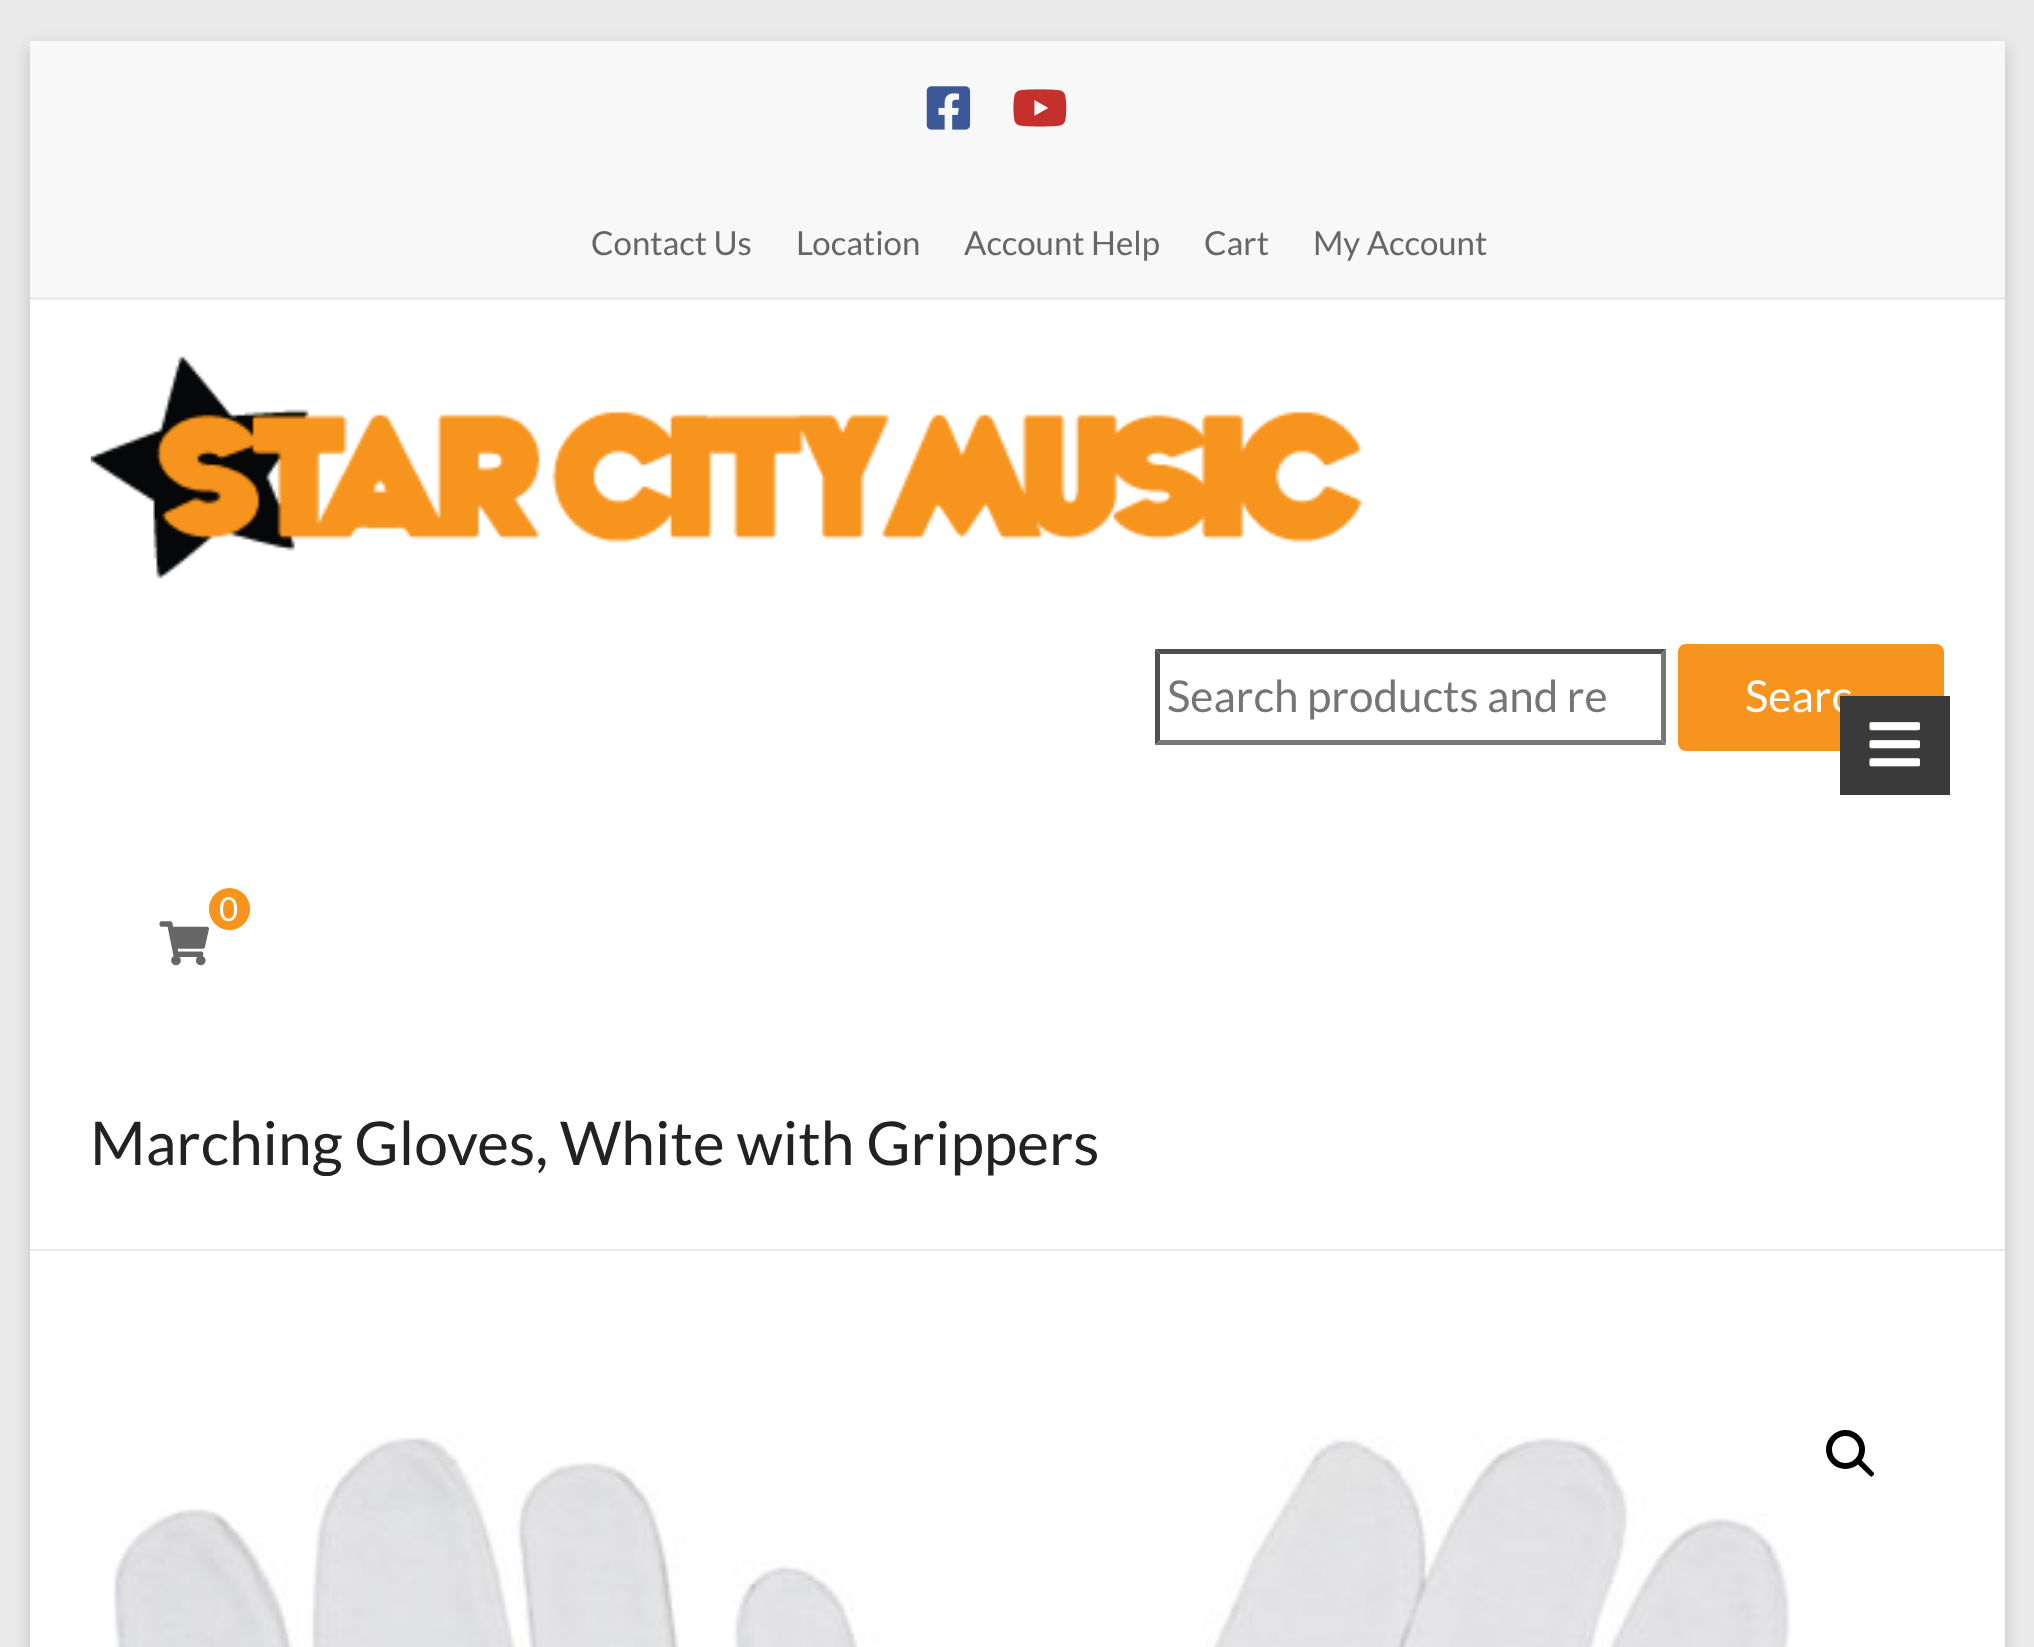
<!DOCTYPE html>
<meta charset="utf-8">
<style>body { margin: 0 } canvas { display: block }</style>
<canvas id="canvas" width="2034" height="1647"></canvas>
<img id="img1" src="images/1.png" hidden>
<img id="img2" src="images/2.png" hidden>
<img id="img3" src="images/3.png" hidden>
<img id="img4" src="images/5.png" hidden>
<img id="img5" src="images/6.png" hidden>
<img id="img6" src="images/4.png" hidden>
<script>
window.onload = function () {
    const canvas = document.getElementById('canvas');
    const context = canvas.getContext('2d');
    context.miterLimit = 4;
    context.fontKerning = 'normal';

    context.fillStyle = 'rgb(234, 234, 234)';
    context.fillRect(0, 0, 2034, 1647);
    context.fillStyle = 'rgba(100, 100, 100, 0.3)';
    context.filter = 'blur(8px)';
    context.beginPath();
    context.rect(30, 47, 1975, 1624);
    context.fill();
    context.filter = 'none';
    context.fillStyle = 'rgb(255, 255, 255)';
    context.fillRect(30, 300, 1975, 949);
    context.fillStyle = 'rgb(248, 248, 248)';
    context.fillRect(30, 41, 1975, 256);
    context.fillStyle = 'rgb(234, 234, 234)';
    context.fillRect(30, 297, 1975, 3);
    context.drawImage(document.getElementById('img1'), 926, 86, 45, 44);
    context.drawImage(document.getElementById('img2'), 1013, 89, 54, 38);
    context.drawImage(document.getElementById('img3'), 90, 356, 1273, 223);
    context.fillStyle = 'rgb(79, 79, 79)';
    context.beginPath();
    context.moveTo(1155, 649);
    context.lineTo(1666, 649);
    context.lineTo(1661, 654);
    context.lineTo(1160, 654);
    context.closePath();
    context.fill();
    context.fillStyle = 'rgb(118, 118, 118)';
    context.beginPath();
    context.moveTo(1666, 649);
    context.lineTo(1666, 745);
    context.lineTo(1661, 740);
    context.lineTo(1661, 654);
    context.closePath();
    context.fill();
    context.beginPath();
    context.moveTo(1666, 745);
    context.lineTo(1155, 745);
    context.lineTo(1160, 740);
    context.lineTo(1661, 740);
    context.closePath();
    context.fill();
    context.fillStyle = 'rgb(79, 79, 79)';
    context.beginPath();
    context.moveTo(1155, 745);
    context.lineTo(1155, 649);
    context.lineTo(1160, 654);
    context.lineTo(1160, 740);
    context.closePath();
    context.fill();
    context.fillStyle = 'rgb(247, 148, 30)';
    context.beginPath();
    context.roundRect(1678, 644, 266, 107, 8);
    context.fill();
    context.beginPath();
    context.roundRect(209, 888, 41, 42, 20.5);
    context.fill();
    context.drawImage(document.getElementById('img4'), 159, 921, 50, 45);
    context.fillStyle = 'rgb(234, 234, 234)';
    context.fillRect(30, 1249, 1975, 2);
    context.fillStyle = 'rgb(255, 255, 255)';
    context.fillRect(30, 1251, 1975, 396);
    context.drawImage(document.getElementById('img5'), 113, 1436, 1678, 211);
    context.beginPath();
    context.arc(1845.5, 1449.5, 16.5, 0, 2 * Math.PI);
    context.strokeStyle = 'rgb(0, 0, 0)';
    context.lineWidth = 6;
    context.stroke();
    context.fillStyle = 'rgb(0, 0, 0)';
    context.beginPath();
    context.moveTo(1857.5, 1460);
    context.bezierCurveTo(1858.5, 1459, 1860.5, 1459, 1861.5, 1460);
    context.lineTo(1873, 1472);
    context.bezierCurveTo(1874.5, 1473, 1874.5, 1474.5, 1873, 1475.5);
    context.bezierCurveTo(1872, 1477, 1870.5, 1477, 1869.5, 1475.5);
    context.lineTo(1857.5, 1464);
    context.bezierCurveTo(1856.5, 1463, 1856.5, 1461, 1857.5, 1460);
    context.closePath();
    context.fill();
    context.font = '33px Lato';
    context.fillStyle = 'rgb(102, 102, 102)';
    context.fillText('Contact Us', 591, 255);
    context.fillText('Location', 796, 255);
    context.fillText('Account Help', 964, 255);
    context.fillText('Cart', 1204, 255);
    context.fillText('My Account', 1313, 255);
    context.font = '44px Lato';
    context.fillStyle = 'rgb(117, 117, 117)';
    context.fillText('Search products and re', 1167, 712);
    context.fillStyle = 'rgb(255, 255, 255)';
    context.fillText('Searc', 1745, 712);
    context.fillStyle = 'rgb(58, 58, 58)';
    context.fillRect(1840, 696, 110, 99);
    context.drawImage(document.getElementById('img6'), 1869, 722, 51, 45);
    context.font = '33px Lato';
    context.fillStyle = 'rgb(255, 255, 255)';
    context.fillText('0', 219, 921);
    context.font = '60.5px Lato';
    context.fillStyle = 'rgb(34, 34, 34)';
    context.fillText('Marching Gloves, White with Grippers', 90, 1165);
};
</script>
